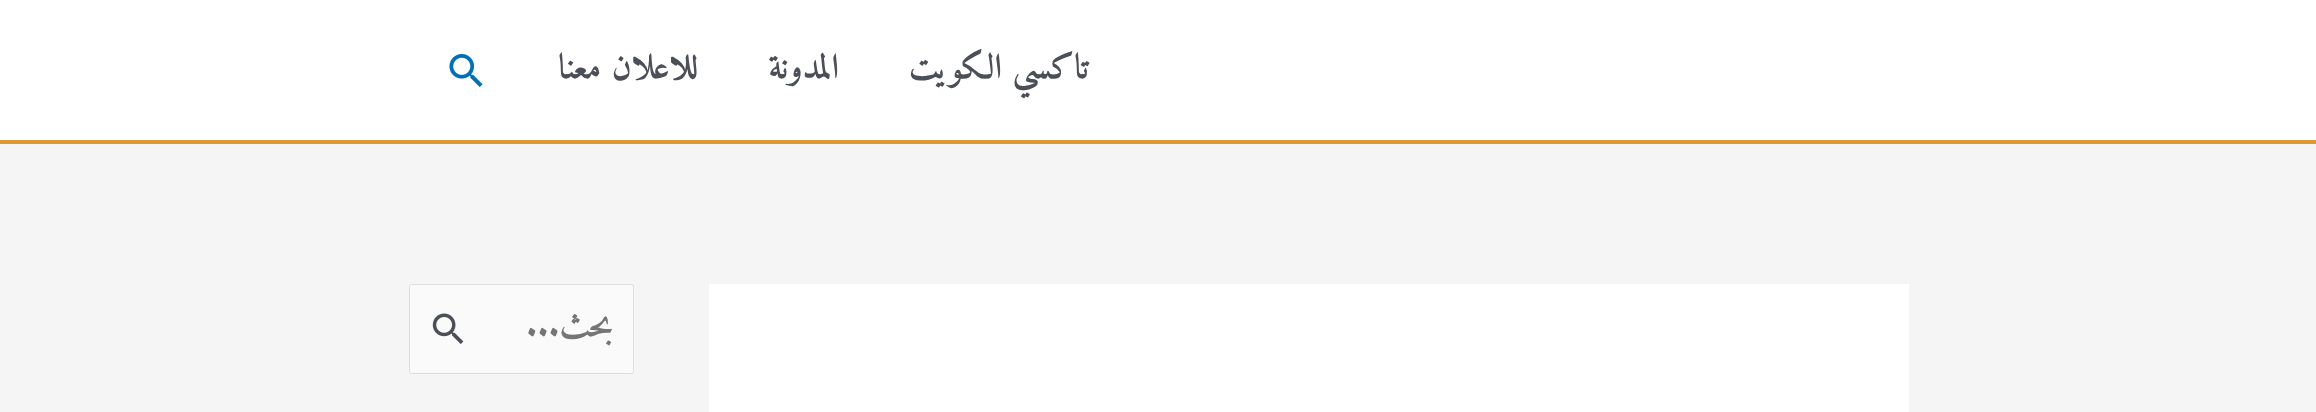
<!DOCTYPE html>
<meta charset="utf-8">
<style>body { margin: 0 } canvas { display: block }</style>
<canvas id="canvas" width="2316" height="412"></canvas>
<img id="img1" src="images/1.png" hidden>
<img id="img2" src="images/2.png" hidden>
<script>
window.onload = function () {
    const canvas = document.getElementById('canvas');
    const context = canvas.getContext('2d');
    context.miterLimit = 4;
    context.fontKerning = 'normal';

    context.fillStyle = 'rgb(245, 245, 245)';
    context.fillRect(0, 0, 2316, 412);
    context.fillStyle = 'rgb(255, 255, 255)';
    context.fillRect(0, 0, 2316, 140);
    context.fillStyle = 'rgb(221, 153, 51)';
    context.fillRect(0, 140, 2316, 4);
    context.drawImage(document.getElementById('img1'), 449, 54, 34, 33);
    context.fillStyle = 'rgb(255, 255, 255)';
    context.fillRect(709, 284, 1200, 128);
    context.fillStyle = 'rgb(250, 250, 250)';
    context.beginPath();
    context.roundRect(409.5, 284.5, 224, 89, 2);
    context.fill();
    context.strokeStyle = 'rgb(221, 221, 221)';
    context.stroke();
    context.drawImage(document.getElementById('img2'), 432, 313, 32, 31);
    context.direction = 'rtl';
    context.font = 'bold 35px Amiri';
    context.fillStyle = 'rgb(75, 79, 88)';
    context.fillText('تاكسي الكويت', 1089, 78);
    context.fillText('المدونة', 839, 78);
    context.fillText('للاعلان معنا', 698, 78);
    context.fillStyle = 'rgb(117, 117, 117)';
    context.fillText('بحث...', 613, 336);
};
</script>
